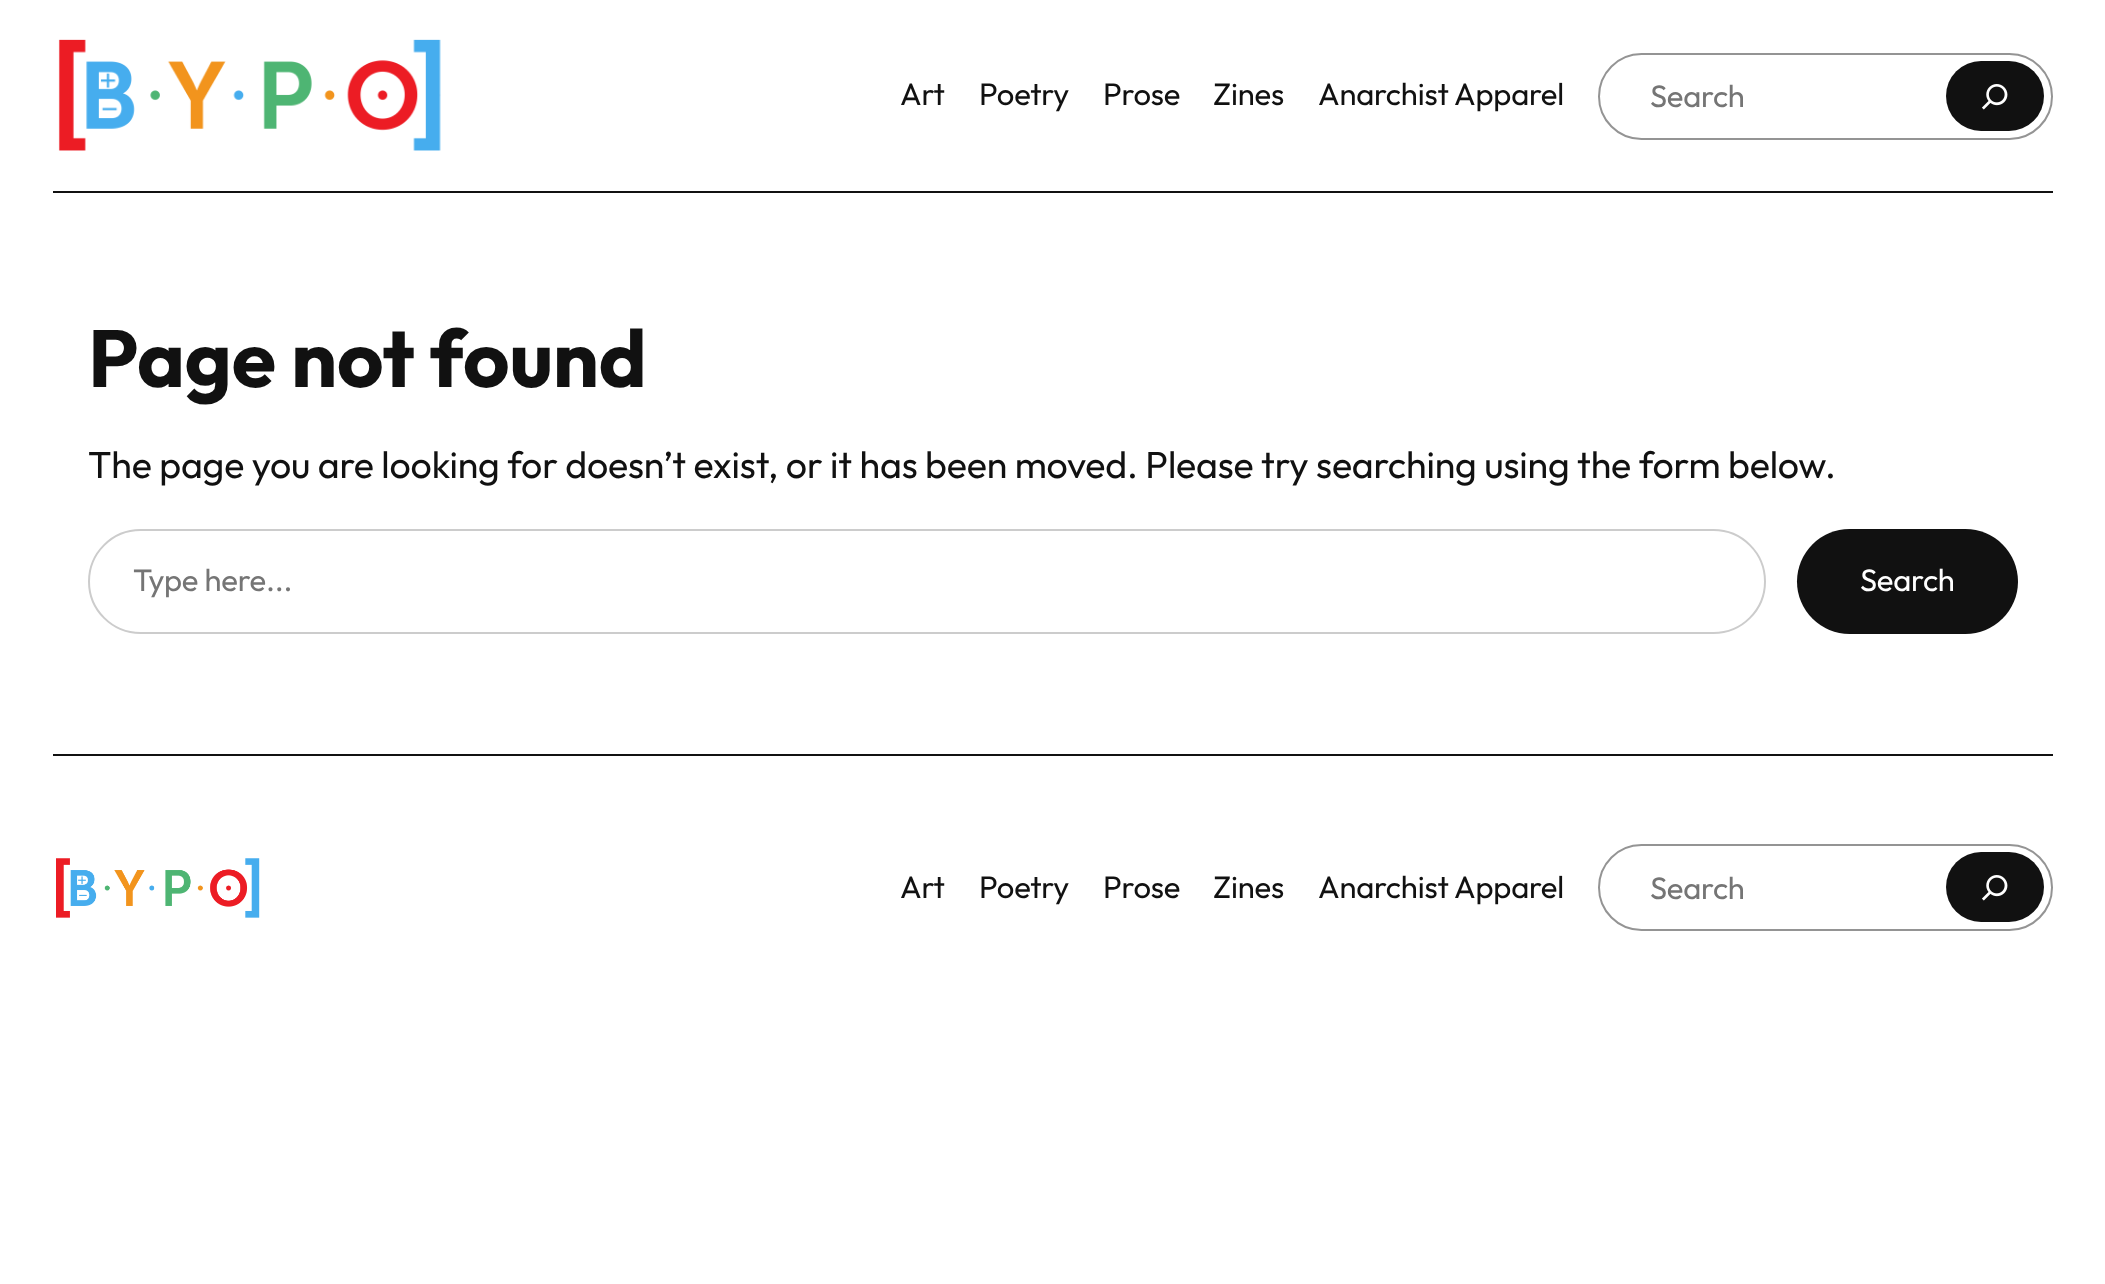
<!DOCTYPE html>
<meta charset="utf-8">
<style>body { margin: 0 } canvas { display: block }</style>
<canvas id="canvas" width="2105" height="1284"></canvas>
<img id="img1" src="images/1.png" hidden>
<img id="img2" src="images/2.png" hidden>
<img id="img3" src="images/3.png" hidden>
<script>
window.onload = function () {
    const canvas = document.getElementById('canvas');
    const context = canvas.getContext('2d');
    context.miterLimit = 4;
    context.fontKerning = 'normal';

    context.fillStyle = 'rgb(255, 255, 255)';
    context.fillRect(0, 0, 2105, 1284);
    context.drawImage(document.getElementById('img1'), 58, 39, 383, 112);
    context.beginPath();
    context.roundRect(1599, 54, 453, 85, 42.5);
    context.strokeStyle = 'rgb(148, 148, 148)';
    context.lineWidth = 2;
    context.stroke();
    context.fillStyle = 'rgb(17, 17, 17)';
    context.beginPath();
    context.roundRect(1946, 61, 98, 70, 35);
    context.fill();
    context.drawImage(document.getElementById('img2'), 1982, 84, 26, 26);
    context.fillRect(53, 191, 2000, 2);
    context.beginPath();
    context.roundRect(89, 530, 1676, 103, 51.5);
    context.strokeStyle = 'rgb(204, 204, 204)';
    context.stroke();
    context.beginPath();
    context.roundRect(1797, 529, 221, 105, 52.5);
    context.fill();
    context.fillRect(53, 754, 2000, 2);
    context.drawImage(document.getElementById('img3'), 56, 858, 204, 60);
    context.beginPath();
    context.roundRect(1599, 845, 453, 85, 42.5);
    context.strokeStyle = 'rgb(148, 148, 148)';
    context.stroke();
    context.beginPath();
    context.roundRect(1946, 852, 98, 70, 35);
    context.fill();
    context.drawImage(document.getElementById('img2'), 1982, 875, 26, 26);
    context.letterSpacing = '-0.18px';
    context.font = '31px Outfit';
    context.fillText('Art', 900, 105);
    context.fillText('Poetry', 979, 105);
    context.fillText('Prose', 1103, 105);
    context.fillText('Zines', 1213, 105);
    context.fillText('Anarchist Apparel', 1318, 105);
    context.fillStyle = 'rgb(117, 117, 117)';
    context.fillText('Search', 1650, 107);
    context.font = 'bold 80.75px Outfit';
    context.fillStyle = 'rgb(17, 17, 17)';
    context.fillText('Page not found', 88, 387);
    context.font = '37.55px Outfit';
    context.fillText('The page you are looking for doesn’t exist, or it has been moved. Please try searching using the form below.', 88, 478);
    context.font = '31px Outfit';
    context.fillStyle = 'rgb(117, 117, 117)';
    context.fillText('Type here...', 133, 591);
    context.fillStyle = 'rgb(255, 255, 255)';
    context.fillText('Search', 1860, 591);
    context.fillStyle = 'rgb(17, 17, 17)';
    context.fillText('Art', 900, 898);
    context.fillText('Poetry', 979, 898);
    context.fillText('Prose', 1103, 898);
    context.fillText('Zines', 1213, 898);
    context.fillText('Anarchist Apparel', 1318, 898);
    context.fillStyle = 'rgb(117, 117, 117)';
    context.fillText('Search', 1650, 899);
};
</script>
